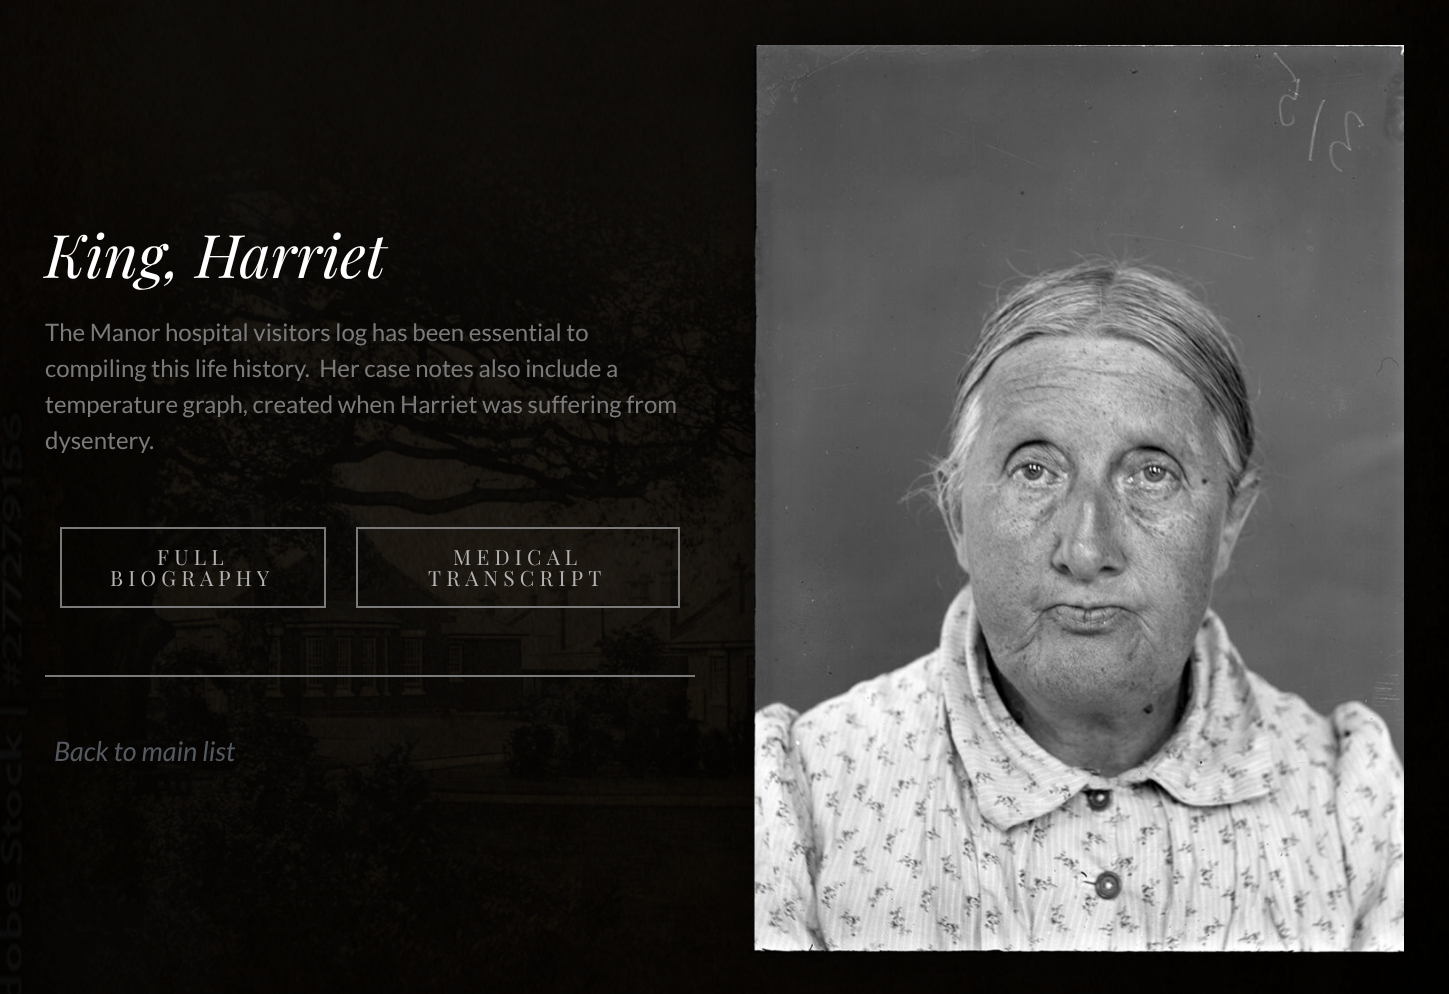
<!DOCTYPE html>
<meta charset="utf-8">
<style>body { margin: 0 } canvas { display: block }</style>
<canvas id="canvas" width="1449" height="994"></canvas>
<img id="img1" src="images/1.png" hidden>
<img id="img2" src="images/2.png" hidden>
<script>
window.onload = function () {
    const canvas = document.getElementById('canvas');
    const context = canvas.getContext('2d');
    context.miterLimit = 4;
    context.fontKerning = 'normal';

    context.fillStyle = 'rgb(255, 255, 255)';
    context.fillRect(0, 0, 1449, 994);
    context.drawImage(document.getElementById('img1'), 0, 0, 1449, 994);
    context.strokeStyle = 'rgb(122, 122, 122)';
    context.lineWidth = 2;
    context.strokeRect(61, 528, 264, 79);
    context.strokeRect(357, 528, 322, 79);
    context.fillStyle = 'rgb(122, 122, 122)';
    context.fillRect(45, 675, 650, 2);
    context.fillStyle = 'rgba(0, 0, 0, 0.77)';
    context.filter = 'blur(34.5px)';
    context.beginPath();
    context.rect(761, 51, 637, 896);
    context.fill();
    context.filter = 'none';
    context.drawImage(document.getElementById('img2'), 754, 45, 650, 908);
    context.font = 'italic 60px Playfair Display';
    context.fillStyle = 'rgb(255, 255, 255)';
    context.fillText('King, Harriet', 45, 278);
    context.font = '24px Lato';
    context.fillStyle = 'rgb(122, 122, 122)';
    context.fillText('The Manor hospital visitors log has been essential to', 45, 341);
    context.fillText('compiling this life history.  Her case notes also include a', 45, 377);
    context.fillText('temperature graph, created when Harriet was suffering from', 45, 413);
    context.fillText('dysentery.', 45, 449);
    context.letterSpacing = '5.25px';
    context.font = '21px Playfair Display';
    context.fillStyle = 'rgb(179, 179, 179)';
    context.fillText('FULL', 157, 565);
    context.fillText('BIOGRAPHY', 110, 586);
    context.fillText('MEDICAL', 453, 565);
    context.fillText('TRANSCRIPT', 428, 586);
    context.letterSpacing = '0px';
    context.font = 'italic 27px Lato';
    context.fillStyle = 'rgb(84, 89, 95)';
    context.fillText('Back to main list', 54, 761);
};
</script>
